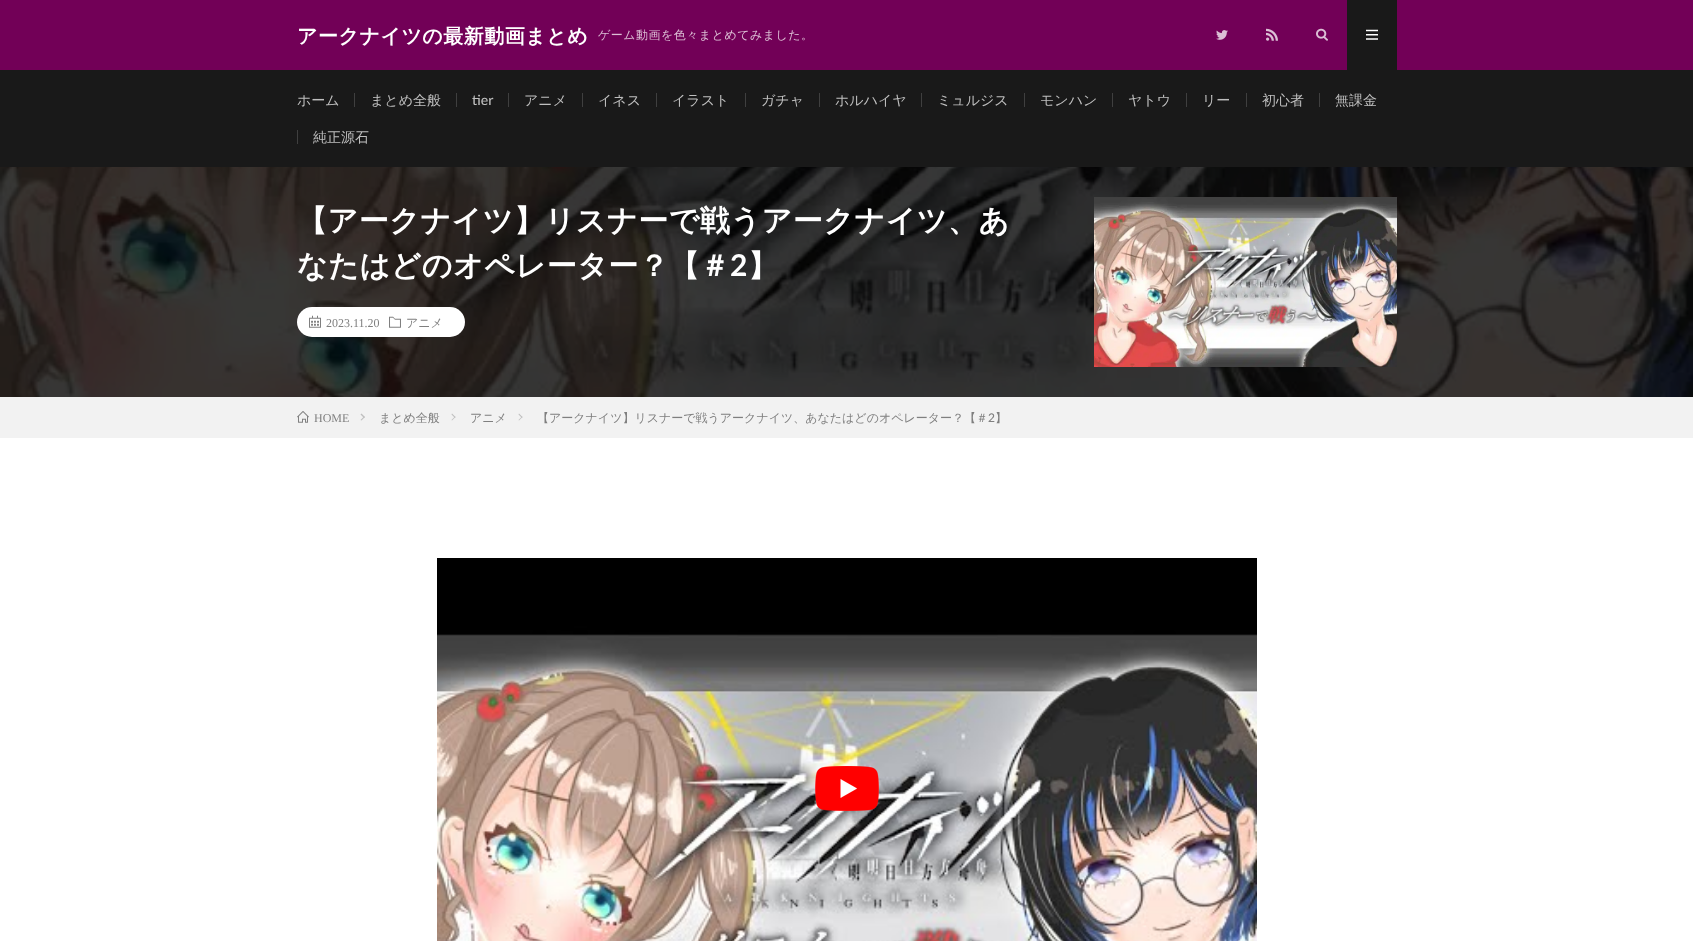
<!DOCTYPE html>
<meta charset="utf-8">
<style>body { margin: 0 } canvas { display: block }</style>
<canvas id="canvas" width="1693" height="941"></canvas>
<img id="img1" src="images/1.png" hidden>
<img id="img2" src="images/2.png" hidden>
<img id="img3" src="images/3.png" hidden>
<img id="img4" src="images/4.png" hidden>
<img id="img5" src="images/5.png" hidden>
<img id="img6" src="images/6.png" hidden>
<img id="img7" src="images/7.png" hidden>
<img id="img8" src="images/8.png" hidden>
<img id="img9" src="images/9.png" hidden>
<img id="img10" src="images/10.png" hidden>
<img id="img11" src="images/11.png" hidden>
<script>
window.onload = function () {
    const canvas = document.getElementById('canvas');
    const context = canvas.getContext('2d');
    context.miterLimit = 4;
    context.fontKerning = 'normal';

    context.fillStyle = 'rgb(255, 255, 255)';
    context.fillRect(0, 0, 1693, 941);
    context.fillStyle = 'rgb(114, 0, 87)';
    context.fillRect(0, 0, 1693, 70);
    context.drawImage(document.getElementById('img1'), 1216, 30, 12, 10);
    context.drawImage(document.getElementById('img2'), 1266, 28, 12, 13);
    context.drawImage(document.getElementById('img3'), 1316, 28, 12, 13);
    context.fillStyle = 'rgb(25, 25, 25)';
    context.fillRect(1347, 0, 50, 70);
    context.drawImage(document.getElementById('img4'), 1366, 29, 12, 11);
    context.fillRect(0, 70, 1693, 97);
    context.fillStyle = 'rgb(63, 63, 63)';
    context.fillRect(354, 93, 1, 14);
    context.fillRect(456, 93, 1, 14);
    context.fillRect(508, 93, 1, 14);
    context.fillRect(582, 93, 1, 14);
    context.fillRect(656, 93, 1, 14);
    context.fillRect(745, 93, 1, 14);
    context.fillRect(819, 93, 1, 14);
    context.fillRect(921, 93, 1, 14);
    context.fillRect(1024, 93, 1, 14);
    context.fillRect(1112, 93, 1, 14);
    context.fillRect(1186, 93, 1, 14);
    context.fillRect(1246, 93, 1, 14);
    context.fillRect(1319, 93, 1, 14);
    context.fillRect(297, 130, 1, 14);
    context.drawImage(document.getElementById('img5'), 0, 167, 1693, 230);
    context.fillStyle = 'rgb(255, 255, 255)';
    context.beginPath();
    context.roundRect(297, 307, 168, 30, 15);
    context.fill();
    context.drawImage(document.getElementById('img6'), 309, 315, 12, 13);
    context.drawImage(document.getElementById('img7'), 389, 316, 12, 12);
    context.drawImage(document.getElementById('img8'), 1094, 197, 303, 170);
    context.fillStyle = 'rgb(242, 242, 242)';
    context.fillRect(0, 397, 1693, 41);
    context.drawImage(document.getElementById('img9'), 297, 411, 12, 12);
    context.fillStyle = 'rgb(191, 191, 191)';
    context.beginPath();
    context.moveTo(361.5, 413.5);
    context.lineTo(365, 417);
    context.lineTo(364, 418);
    context.lineTo(360.5, 414.5);
    context.closePath();
    context.fill();
    context.beginPath();
    context.moveTo(364, 416.5);
    context.lineTo(365, 417);
    context.lineTo(361.5, 420.5);
    context.lineTo(360.5, 420);
    context.closePath();
    context.fill();
    context.beginPath();
    context.moveTo(452, 413.5);
    context.lineTo(455.5, 417);
    context.lineTo(455, 418);
    context.lineTo(451.5, 414.5);
    context.closePath();
    context.fill();
    context.beginPath();
    context.moveTo(455, 416.5);
    context.lineTo(455.5, 417);
    context.lineTo(452, 420.5);
    context.lineTo(451.5, 420);
    context.closePath();
    context.fill();
    context.beginPath();
    context.moveTo(519, 413.5);
    context.lineTo(522.5, 417);
    context.lineTo(522, 418);
    context.lineTo(518.5, 414.5);
    context.closePath();
    context.fill();
    context.beginPath();
    context.moveTo(522, 416.5);
    context.lineTo(522.5, 417);
    context.lineTo(519, 420.5);
    context.lineTo(518.5, 420);
    context.closePath();
    context.fill();
    context.drawImage(document.getElementById('img10'), 437, 558, 820, 383);
    context.drawImage(document.getElementById('img11'), 815, 766, 64, 45);
    context.letterSpacing = '0.5px';
    context.font = 'bold 20px WenQuanYi Zen Hei';
    context.fillStyle = 'rgb(255, 255, 255)';
    context.fillText('アークナイツの最新動画まとめ', 297, 43);
    context.font = '500 12px WenQuanYi Zen Hei';
    context.fillStyle = 'rgb(220, 191, 213)';
    context.fillText('ゲーム動画を色々まとめてみました。', 598, 39);
    context.letterSpacing = '0px';
    context.font = '500 14px WenQuanYi Zen Hei';
    context.fillStyle = 'rgb(191, 191, 191)';
    context.fillText('ホーム', 297, 105);
    context.fillText('まとめ全般', 370, 105);
    context.font = '500 14px Lato';
    context.fillText('tier', 472, 105);
    context.font = '500 14px WenQuanYi Zen Hei';
    context.fillText('アニメ', 524, 105);
    context.fillText('イネス', 598, 105);
    context.fillText('イラスト', 672, 105);
    context.fillText('ガチャ', 761, 105);
    context.fillText('ホルハイヤ', 835, 105);
    context.fillText('ミュルジス', 937, 105);
    context.fillText('モンハン', 1040, 105);
    context.fillText('ヤトウ', 1128, 105);
    context.fillText('リー', 1202, 105);
    context.fillText('初心者', 1262, 105);
    context.fillText('無課金', 1335, 105);
    context.fillText('純正源石', 313, 142);
    context.letterSpacing = '0.5px';
    context.font = 'bold 30px WenQuanYi Zen Hei';
    context.fillStyle = 'rgb(255, 255, 255)';
    context.fillText('【アークナイツ】リスナーで戦うアークナイツ、あ', 297, 231);
    context.fillText('なたはどのオペレーター？【＃', 297, 276);
    context.font = 'bold 30px Lato';
    context.fillText('2', 730, 276);
    context.font = 'bold 30px WenQuanYi Zen Hei';
    context.fillText('】', 748, 276);
    context.letterSpacing = '0px';
    context.font = '12px Liberation Serif';
    context.fillStyle = 'rgb(127, 127, 127)';
    context.fillText('2023.11.20', 326, 327);
    context.font = '500 12px WenQuanYi Zen Hei';
    context.fillText('アニメ', 406, 327);
    context.font = '12px Liberation Serif';
    context.fillText('HOME', 314, 422);
    context.font = '500 12px WenQuanYi Zen Hei';
    context.fillText('まとめ全般', 379, 422);
    context.fillText('アニメ', 470, 422);
    context.fillText('【アークナイツ】リスナーで戦うアークナイツ、あなたはどのオペレーター？【＃', 537, 422);
    context.font = '500 12px Lato';
    context.fillText('2', 988, 422);
    context.font = '500 12px WenQuanYi Zen Hei';
    context.fillText('】', 995, 422);
};
</script>
